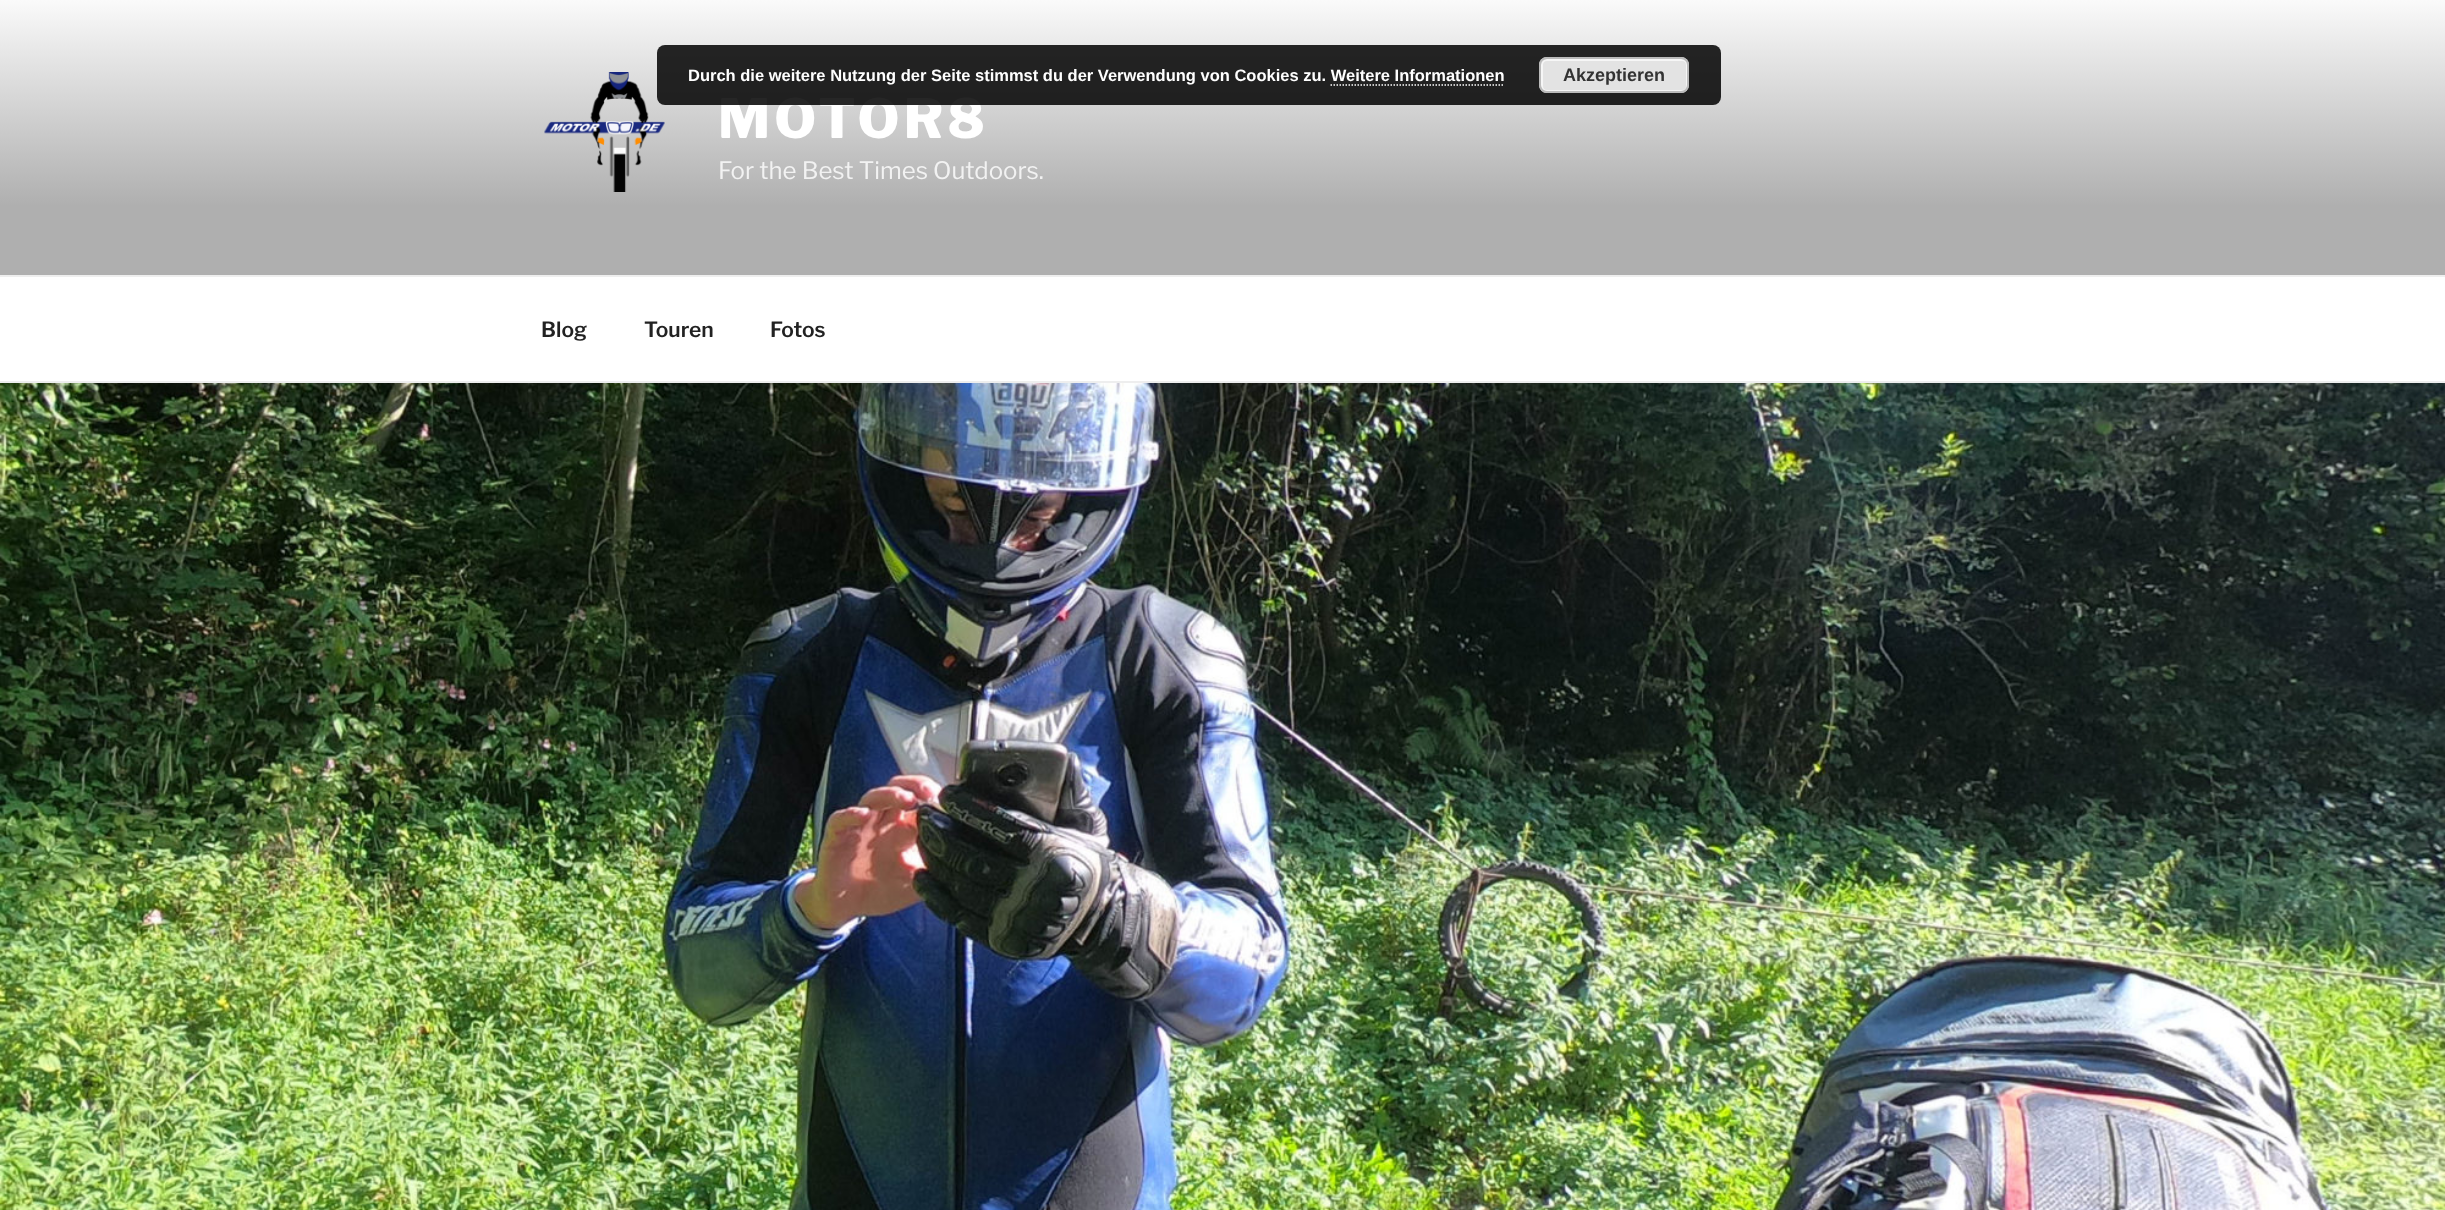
<!DOCTYPE html>
<meta charset="utf-8">
<style>body { margin: 0 } canvas { display: block }</style>
<canvas id="canvas" width="2445" height="1210"></canvas>
<img id="img1" src="images/1.png" hidden>
<img id="img2" src="images/2.png" hidden>
<script>
window.onload = function () {
    const canvas = document.getElementById('canvas');
    const context = canvas.getContext('2d');
    context.miterLimit = 4;
    context.fontKerning = 'normal';
    let gradient;

    context.fillStyle = 'rgb(255, 255, 255)';
    context.fillRect(0, 0, 2445, 1210);
    gradient = context.createLinearGradient(1223, 0, 1223, 275);
    gradient.addColorStop(0, 'rgb(250, 250, 250)');
    gradient.addColorStop(0.75, 'rgb(175, 175, 175)');
    gradient.addColorStop(1, 'rgb(175, 175, 175)');
    context.fillStyle = gradient;
    context.fillRect(0, 0, 2445, 275);
    context.drawImage(document.getElementById('img1'), 544, 72, 121, 120);
    context.fillStyle = 'rgb(238, 238, 238)';
    context.fillRect(0, 275, 2445, 2);
    context.fillRect(0, 381, 2445, 2);
    context.drawImage(document.getElementById('img2'), 0, 383, 2445, 827);
    context.letterSpacing = '4.25px';
    context.font = '100 54px Libre Franklin';
    context.fillStyle = 'rgb(255, 255, 255)';
    context.fillText('MOTOR8', 718, 138);
    context.fillStyle = 'rgba(0, 0, 0, 0.85)';
    context.beginPath();
    context.roundRect(657, 45, 1064, 60, 8);
    context.fill();
    context.fillStyle = 'rgb(227, 227, 227)';
    context.beginPath();
    context.roundRect(1539, 57, 150, 36, 8);
    context.fill();
    context.beginPath();
    context.roundRect(1542, 60, 145, 31, 5);
    context.strokeStyle = 'rgb(246, 246, 246)';
    context.lineWidth = 2;
    context.stroke();
    context.beginPath();
    context.roundRect(1540, 58, 148, 34, 7);
    context.strokeStyle = 'rgb(187, 187, 187)';
    context.stroke();
    context.letterSpacing = '0px';
    context.font = 'bold 18px Liberation Sans';
    context.fillStyle = 'rgb(51, 51, 51)';
    context.fillText('Akzeptieren', 1563, 81);
    context.beginPath();
    context.moveTo(1330.5, 85);
    context.lineTo(1504.5, 85);
    context.strokeStyle = 'rgb(255, 255, 255)';
    context.lineWidth = 1.5;
    context.setLineDash([1.5, 1.5]);
    context.stroke();
    context.font = 'bold 16.5px Liberation Sans';
    context.fillStyle = 'rgb(255, 255, 255)';
    context.fillText('Durch die weitere Nutzung der Seite stimmst du der Verwendung von Cookies zu. Weitere Informationen', 688, 81);
    context.font = '100 24px "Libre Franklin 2"';
    context.fillStyle = 'rgb(242, 242, 242)';
    context.fillText('For the Best Times Outdoors.', 718, 179);
    context.font = '100 21px "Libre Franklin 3"';
    context.fillStyle = 'rgb(34, 34, 34)';
    context.fillText('Blog', 541, 337);
    context.fillText('Touren', 644, 337);
    context.fillText('Fotos', 770, 337);
};
</script>
